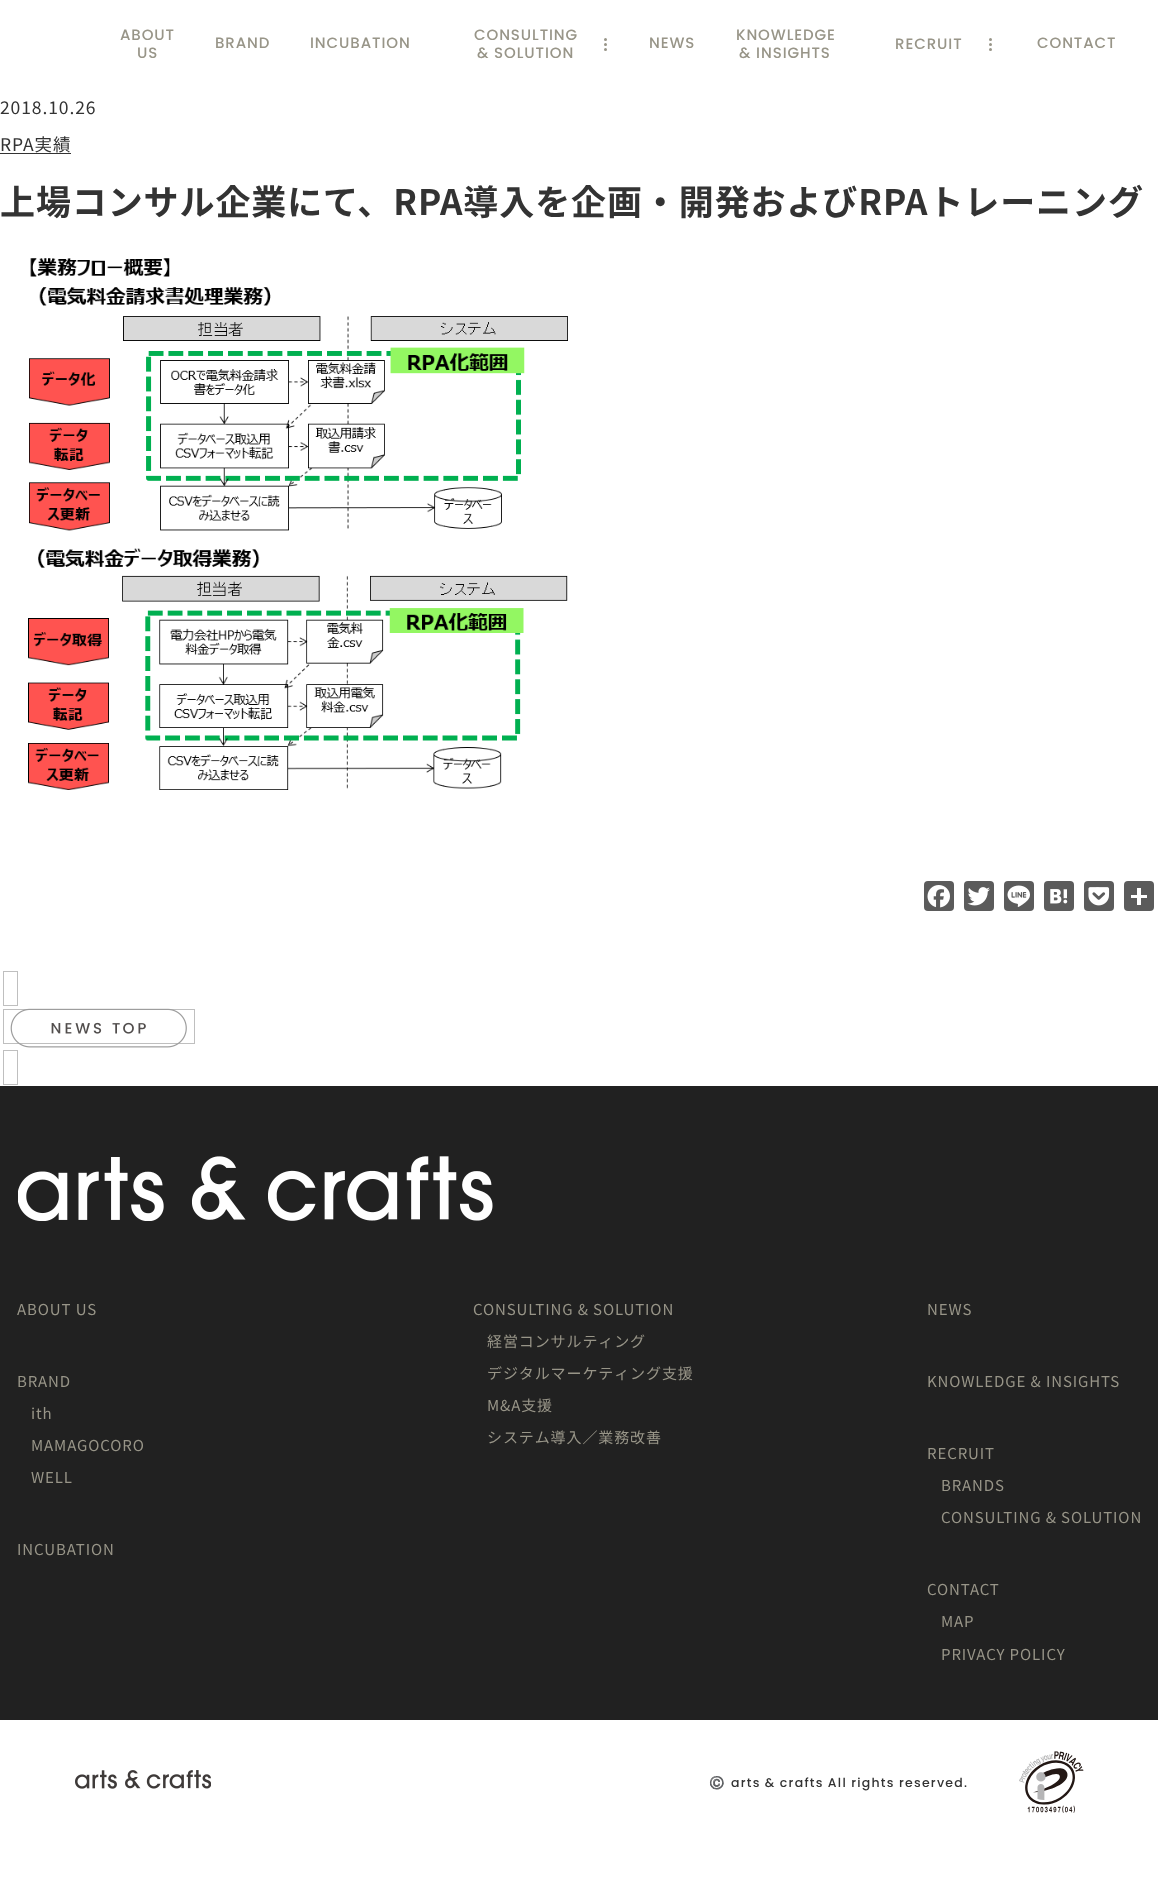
<!DOCTYPE html>
<meta charset="utf-8">
<style>body { margin: 0 } canvas { display: block }</style>
<canvas id="canvas" width="1158" height="1880"></canvas>
<img id="img1" src="images/1.png" hidden>
<img id="img2" src="images/2.png" hidden>
<img id="img3" src="images/3.png" hidden>
<img id="img4" src="images/4.png" hidden>
<img id="img5" src="images/5.png" hidden>
<img id="img6" src="images/6.png" hidden>
<img id="img7" src="images/7.png" hidden>
<img id="img8" src="images/8.png" hidden>
<img id="img9" src="images/9.png" hidden>
<img id="img10" src="images/10.png" hidden>
<script>
window.onload = function () {
    const canvas = document.getElementById('canvas');
    const context = canvas.getContext('2d');
    context.miterLimit = 4;
    context.fontKerning = 'normal';

    context.fillStyle = 'rgb(255, 255, 255)';
    context.fillRect(0, 0, 1158, 1880);
    context.fillStyle = 'rgb(152, 149, 136)';
    context.beginPath();
    context.arc(605.5, 39.5, 1.5, 0, 2 * Math.PI);
    context.fill();
    context.beginPath();
    context.arc(605.5, 44.5, 1.5, 0, 2 * Math.PI);
    context.fill();
    context.beginPath();
    context.arc(605.5, 49.5, 1.5, 0, 2 * Math.PI);
    context.fill();
    context.beginPath();
    context.arc(990.5, 39.5, 1.5, 0, 2 * Math.PI);
    context.fill();
    context.beginPath();
    context.arc(990.5, 44.5, 1.5, 0, 2 * Math.PI);
    context.fill();
    context.beginPath();
    context.arc(990.5, 49.5, 1.5, 0, 2 * Math.PI);
    context.fill();
    context.fillStyle = 'rgb(51, 51, 51)';
    context.fillRect(0, 153, 71, 1);
    context.drawImage(document.getElementById('img1'), 28, 258, 540, 532);
    context.fillStyle = 'rgb(91, 91, 91)';
    context.beginPath();
    context.roundRect(924, 881, 30, 30, 4);
    context.fill();
    context.drawImage(document.getElementById('img2'), 927, 885, 23, 23);
    context.beginPath();
    context.roundRect(964, 881, 30, 30, 4);
    context.fill();
    context.drawImage(document.getElementById('img3'), 967, 887, 23, 19);
    context.beginPath();
    context.roundRect(1004, 881, 30, 30, 4);
    context.fill();
    context.drawImage(document.getElementById('img4'), 1007, 885, 23, 22);
    context.beginPath();
    context.roundRect(1044, 881, 30, 30, 4);
    context.fill();
    context.drawImage(document.getElementById('img5'), 1050, 889, 18, 15);
    context.beginPath();
    context.roundRect(1084, 881, 30, 30, 4);
    context.fill();
    context.drawImage(document.getElementById('img6'), 1088, 887, 22, 19);
    context.beginPath();
    context.roundRect(1124, 881, 30, 30, 4);
    context.fill();
    context.fillStyle = 'rgb(255, 255, 255)';
    context.fillRect(1137, 888, 4, 17);
    context.fillRect(1131, 895, 16, 3);
    context.strokeStyle = 'rgb(191, 191, 191)';
    context.strokeRect(3.5, 971.5, 14, 34);
    context.strokeRect(3.5, 1009.5, 191, 34);
    context.drawImage(document.getElementById('img7'), 10, 1008, 177, 40);
    context.strokeRect(3.5, 1050.5, 14, 34);
    context.fillStyle = 'rgb(33, 33, 33)';
    context.fillRect(0, 1086, 1158, 634);
    context.drawImage(document.getElementById('img8'), 18, 1156, 475, 65);
    context.drawImage(document.getElementById('img9'), 75, 1770, 136, 19);
    context.drawImage(document.getElementById('img10'), 1019, 1751, 65, 62);
    context.letterSpacing = '0.9px';
    context.font = '500 15px Poppins';
    context.fillStyle = 'rgb(152, 149, 136)';
    context.fillText('ABOUT', 120, 40);
    context.fillText('US', 137, 58);
    context.fillText('BRAND', 215, 48);
    context.fillText('INCUBATION', 310, 48);
    context.fillText('CONSULTING', 474, 40);
    context.fillText('& SOLUTION', 477, 58);
    context.fillText('NEWS', 649, 48);
    context.fillText('KNOWLEDGE', 736, 40);
    context.fillText('& INSIGHTS', 739, 58);
    context.fillText('RECRUIT', 895, 49);
    context.fillText('CONTACT', 1037, 48);
    context.font = '17.5px Noto Sans JP';
    context.fillStyle = 'rgb(51, 51, 51)';
    context.fillText('2018.10.26', 0, 114);
    context.fillText('RPA実績', 0, 151);
    context.font = 'bold 35px Noto Sans JP';
    context.fillText('上場コンサル企業にて、RPA導入を企画・開発およびRPAトレーニング', 0, 215);
    context.font = '15px Noto Sans JP';
    context.fillStyle = 'rgb(152, 149, 136)';
    context.fillText('ABOUT US', 17, 1315);
    context.fillText('BRAND', 17, 1387);
    context.fillText('ith', 31, 1419);
    context.fillText('MAMAGOCORO', 31, 1451);
    context.fillText('WELL', 31, 1483);
    context.fillText('INCUBATION', 17, 1555);
    context.fillText('CONSULTING & SOLUTION', 473, 1315);
    context.fillText('経営コンサルティング', 487, 1347);
    context.fillText('デジタルマーケティング支援', 487, 1379);
    context.fillText('M&A支援', 487, 1411);
    context.fillText('システム導入／業務改善', 487, 1443);
    context.fillText('NEWS', 927, 1315);
    context.fillText('KNOWLEDGE & INSIGHTS', 927, 1387);
    context.fillText('RECRUIT', 927, 1459);
    context.fillText('BRANDS', 941, 1491);
    context.fillText('CONSULTING & SOLUTION', 941, 1523);
    context.fillText('CONTACT', 927, 1595);
    context.fillText('MAP', 941, 1627);
    context.fillText('PRIVACY POLICY', 941, 1660);
    context.letterSpacing = '1.25px';
    context.font = '12.5px Noto Color Emoji';
    context.fillStyle = 'rgb(51, 51, 51)';
    context.fillText('©️', 709, 1787);
    context.wordSpacing = '-0.25px';
    context.font = '500 12.5px Poppins';
    context.fillText('arts & crafts All rights reserved.', 731, 1787);
};
</script>
